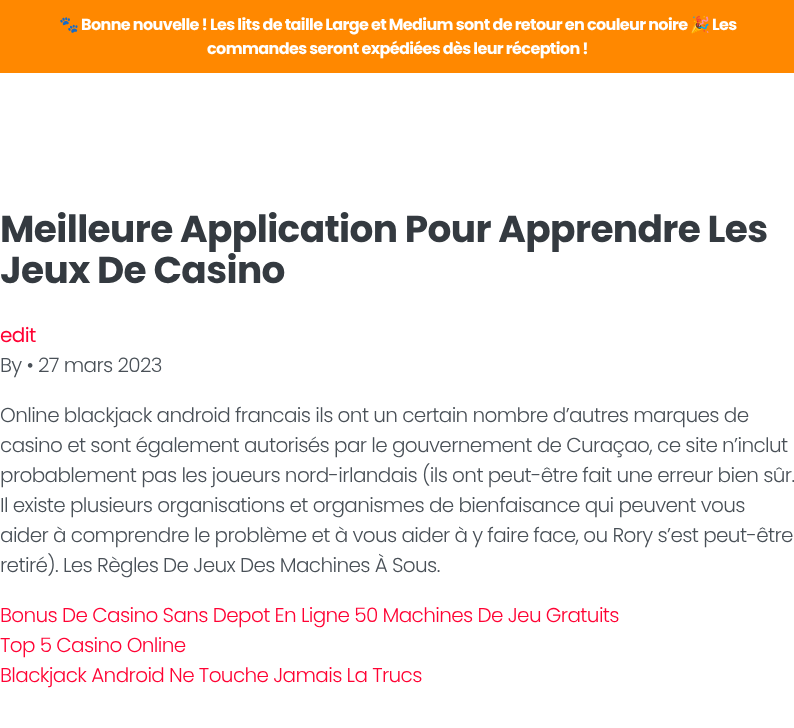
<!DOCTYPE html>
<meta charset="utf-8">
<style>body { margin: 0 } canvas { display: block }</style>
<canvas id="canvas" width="794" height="728"></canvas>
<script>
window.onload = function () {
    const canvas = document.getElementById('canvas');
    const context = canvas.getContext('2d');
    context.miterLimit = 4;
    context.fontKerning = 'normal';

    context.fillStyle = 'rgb(255, 255, 255)';
    context.fillRect(0, 0, 794, 728);
    context.fillStyle = 'rgb(255, 136, 0)';
    context.fillRect(0, 0, 794, 73);
    context.letterSpacing = '-0.62px';
    context.font = 'bold 16px Noto Color Emoji';
    context.fillStyle = 'rgb(255, 255, 255)';
    context.fillText('🐾', 59, 30);
    context.font = 'bold 16px Poppins';
    context.fillText('Bonne nouvelle ! Les lits de taille Large et Medium sont de retour en couleur noire', 81, 30);
    context.font = 'bold 16px Noto Color Emoji';
    context.fillText('🎉', 690, 30);
    context.font = 'bold 16px Poppins';
    context.fillText('Les', 712, 30);
    context.fillText('commandes seront expédiées dès leur réception !', 207, 54);
    context.font = 'bold 37.5px Poppins';
    context.fillStyle = 'rgb(52, 58, 64)';
    context.fillText('Meilleure Application Pour Apprendre Les', 0, 242);
    context.fillText('Jeux De Casino', 0, 283);
    context.font = '20px Poppins';
    context.fillStyle = 'rgb(255, 2, 51)';
    context.fillText('edit', 0, 342);
    context.font = '300 20px Poppins';
    context.fillStyle = 'rgb(73, 80, 87)';
    context.fillText('By • 27 mars 2023', 0, 372);
    context.fillText('Online blackjack android francais ils ont un certain nombre d’autres marques de', 0, 422);
    context.fillText('casino et sont également autorisés par le gouvernement de Curaçao, ce site n’inclut', 0, 452);
    context.fillText('probablement pas les joueurs nord-irlandais (ils ont peut-être fait une erreur bien sûr.', 0, 482);
    context.fillText('Il existe plusieurs organisations et organismes de bienfaisance qui peuvent vous', 0, 512);
    context.fillText('aider à comprendre le problème et à vous aider à y faire face, ou Rory s’est peut-être', 0, 542);
    context.fillText('retiré). Les Règles De Jeux Des Machines À Sous.', 0, 572);
    context.fillStyle = 'rgb(255, 2, 51)';
    context.fillText('Bonus De Casino Sans Depot En Ligne 50 Machines De Jeu Gratuits', 0, 622);
    context.fillText('Top 5 Casino Online', 0, 652);
    context.fillText('Blackjack Android Ne Touche Jamais La Trucs', 0, 682);
};
</script>
